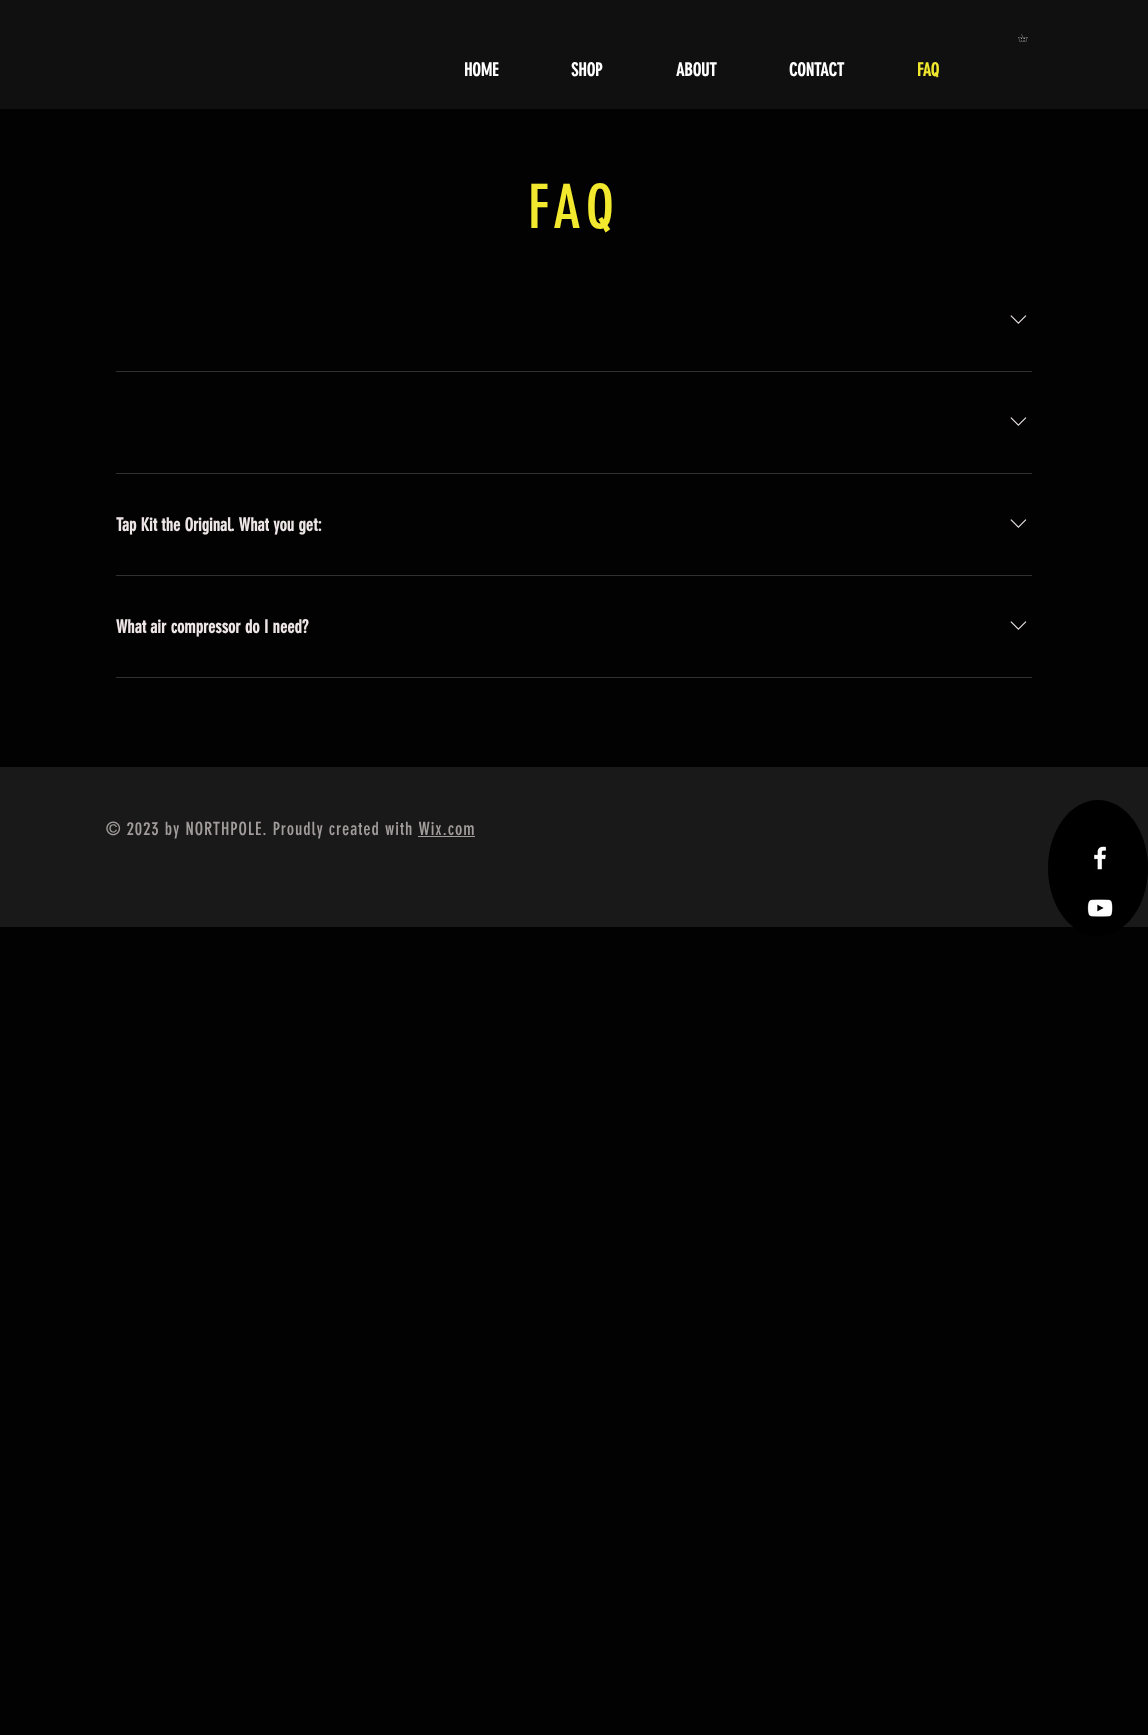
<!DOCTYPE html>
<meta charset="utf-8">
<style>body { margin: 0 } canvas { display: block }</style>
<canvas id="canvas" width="1148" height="1735"></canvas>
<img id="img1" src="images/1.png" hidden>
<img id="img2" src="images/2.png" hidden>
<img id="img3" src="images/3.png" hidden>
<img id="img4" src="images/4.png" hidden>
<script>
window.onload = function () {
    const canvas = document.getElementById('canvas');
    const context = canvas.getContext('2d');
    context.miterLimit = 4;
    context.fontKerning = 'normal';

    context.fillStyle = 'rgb(2, 2, 2)';
    context.fillRect(0, 0, 1148, 1735);
    context.fillStyle = 'rgb(16, 16, 16)';
    context.fillRect(0, 0, 1148, 109);
    context.drawImage(document.getElementById('img1'), 1018, 34, 10, 8);
    context.drawImage(document.getElementById('img2'), 1010, 315, 17, 9);
    context.fillStyle = 'rgb(49, 48, 48)';
    context.fillRect(116, 371, 916, 1);
    context.drawImage(document.getElementById('img2'), 1010, 417, 17, 9);
    context.fillRect(116, 473, 916, 1);
    context.drawImage(document.getElementById('img2'), 1010, 519, 17, 9);
    context.fillRect(116, 575, 916, 1);
    context.drawImage(document.getElementById('img2'), 1010, 621, 17, 9);
    context.fillRect(116, 677, 916, 1);
    context.fillStyle = 'rgb(26, 25, 25)';
    context.fillRect(0, 767, 1148, 160);
    context.fillStyle = 'rgb(162, 156, 156)';
    context.fillRect(418, 836, 57, 1);
    context.fillStyle = 'rgb(0, 0, 0)';
    context.beginPath();
    context.ellipse(1098, 868, 50, 68, 0, 0, 2 * Math.PI);
    context.fill();
    context.drawImage(document.getElementById('img3'), 1094, 846, 13, 24);
    context.drawImage(document.getElementById('img4'), 1087, 899, 26, 18);
    context.font = 'bold 18px "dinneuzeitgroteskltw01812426"';
    context.fillStyle = 'rgb(255, 255, 255)';
    context.fillText('HOME', 464, 76);
    context.fillText('SHOP', 571, 76);
    context.fillText('ABOUT', 676, 76);
    context.fillText('CONTACT', 789, 76);
    context.fillStyle = 'rgb(242, 232, 46)';
    context.fillText('FAQ', 917, 76);
    context.letterSpacing = '6px';
    context.font = '60px "dinneuzeitgroteskltw01812426"';
    context.fillText('FAQ', 528, 228);
    context.letterSpacing = '0px';
    context.font = 'bold 18px "dinneuzeitgroteskltw01812426"';
    context.fillStyle = 'rgb(238, 230, 230)';
    context.fillText('Tap Kit the Original. What you get:', 116, 531);
    context.fillText('What air compressor do I need?', 116, 633);
    context.letterSpacing = '0.9px';
    context.font = '18px "dinneuzeitgroteskltw01812426"';
    context.fillStyle = 'rgb(162, 156, 156)';
    context.fillText('© 2023 by NORTHPOLE. Proudly created with Wix.com', 106, 835);
};
</script>
